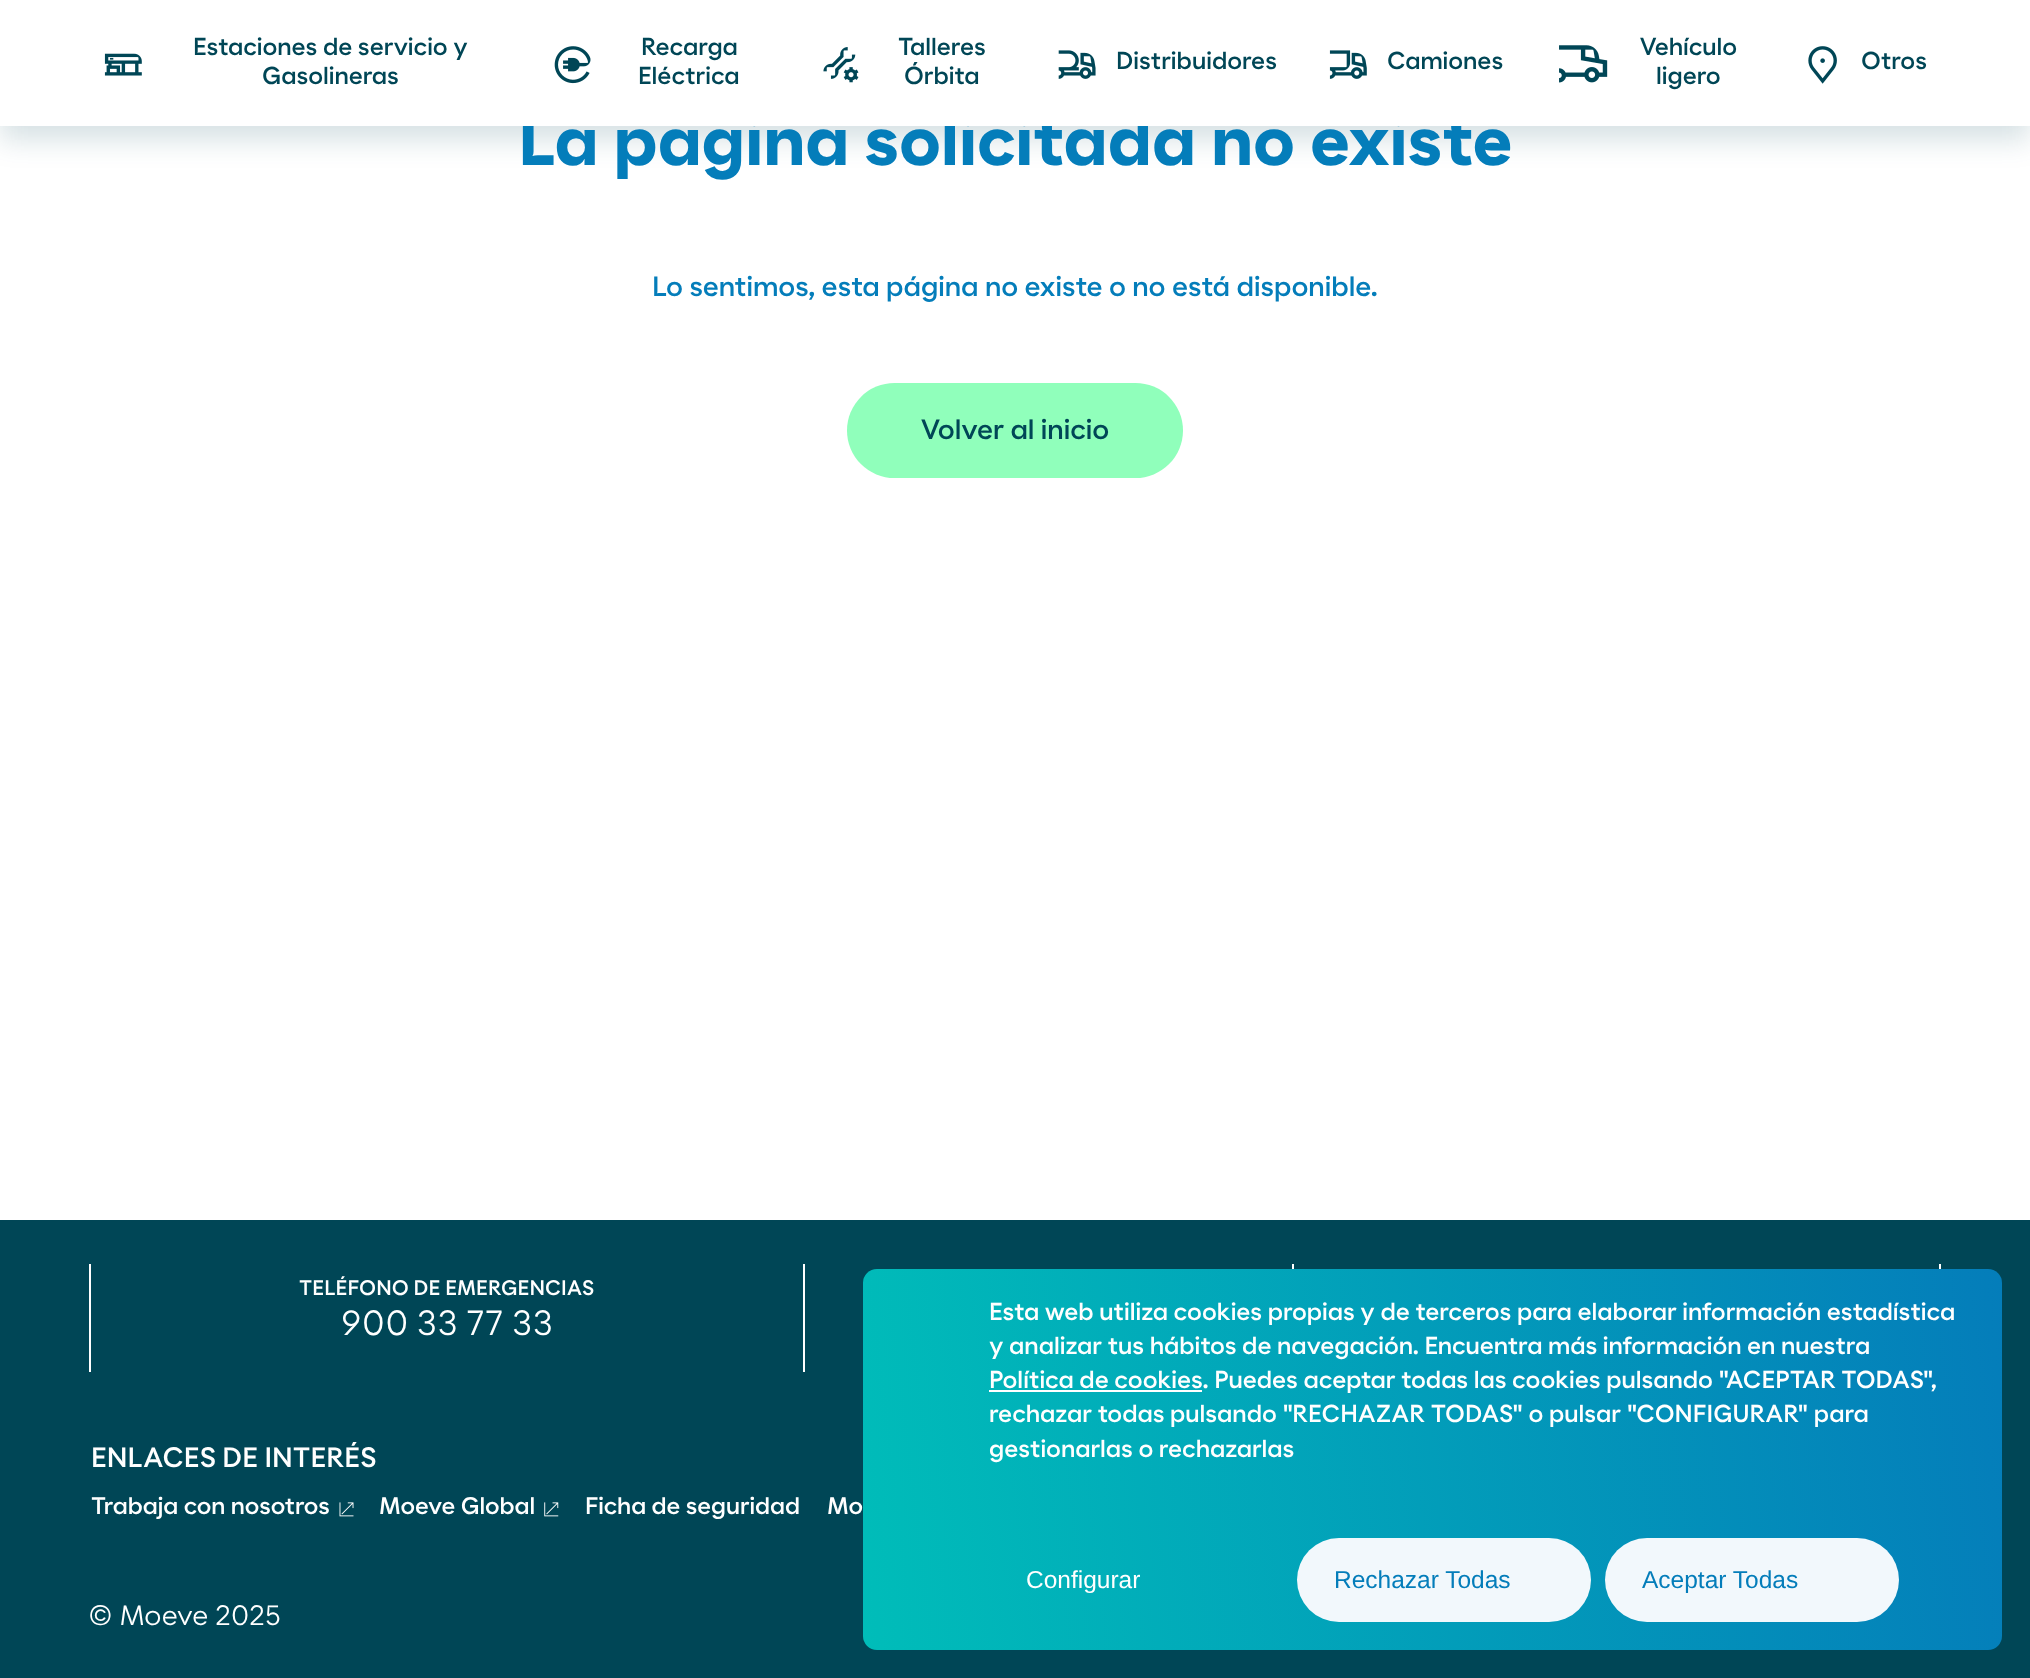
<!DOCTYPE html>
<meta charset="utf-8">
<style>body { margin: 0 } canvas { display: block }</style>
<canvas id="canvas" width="2030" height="1678"></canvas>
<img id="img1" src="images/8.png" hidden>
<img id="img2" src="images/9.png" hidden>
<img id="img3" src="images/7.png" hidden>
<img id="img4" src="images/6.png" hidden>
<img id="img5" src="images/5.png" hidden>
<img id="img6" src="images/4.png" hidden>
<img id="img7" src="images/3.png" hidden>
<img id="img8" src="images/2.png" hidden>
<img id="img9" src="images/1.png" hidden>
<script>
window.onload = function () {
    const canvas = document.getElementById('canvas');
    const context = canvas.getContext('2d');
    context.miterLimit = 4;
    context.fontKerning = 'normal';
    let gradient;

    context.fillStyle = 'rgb(255, 255, 255)';
    context.fillRect(0, 0, 2030, 1678);
    context.fillStyle = 'rgba(0, 70, 86, 0.16)';
    context.filter = 'blur(14px)';
    context.beginPath();
    context.rect(0, 14, 2030, 126);
    context.fill();
    context.filter = 'none';
    context.fillStyle = 'rgb(144, 255, 187)';
    context.beginPath();
    context.roundRect(847, 383, 336, 95, 47.5);
    context.fill();
    context.fillStyle = 'rgb(0, 70, 86)';
    context.fillRect(0, 1220, 2030, 458);
    context.fillStyle = 'rgb(255, 255, 255)';
    context.fillRect(1292, 1264, 2, 5);
    context.fillRect(803, 1264, 2, 108);
    context.fillRect(1939, 1264, 2, 5);
    context.fillRect(89, 1264, 2, 108);
    context.drawImage(document.getElementById('img1'), 339, 1502, 15, 15);
    context.drawImage(document.getElementById('img2'), 544, 1502, 15, 15);
    gradient = context.createLinearGradient(848, 1531, 2017, 1388);
    gradient.addColorStop(0, 'rgb(0, 189, 185)');
    gradient.addColorStop(1, 'rgb(4, 125, 186)');
    context.fillStyle = gradient;
    context.beginPath();
    context.roundRect(863, 1269, 1139, 381, 14);
    context.fill();
    context.fillStyle = 'rgb(255, 255, 255)';
    context.fillRect(989, 1390, 213, 2);
    context.fillStyle = 'rgb(242, 248, 252)';
    context.beginPath();
    context.roundRect(1297, 1538, 294, 84, 42);
    context.fill();
    context.beginPath();
    context.roundRect(1605, 1538, 294, 84, 42);
    context.fill();
    context.font = 'bold 70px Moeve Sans';
    context.fillStyle = 'rgb(4, 125, 186)';
    context.fillText('La página solicitada no existe', 518, 165);
    context.fillStyle = 'rgb(255, 255, 255)';
    context.fillRect(0, 0, 2030, 126);
    context.font = '24.5px Moeve Sans';
    context.fillStyle = 'rgb(0, 70, 86)';
    context.fillText('Otros', 1861, 69);
    context.drawImage(document.getElementById('img3'), 1808, 46, 29, 38);
    context.fillText('ligero', 1656, 84);
    context.fillText('Vehículo', 1639, 55);
    context.drawImage(document.getElementById('img4'), 1559, 45, 49, 38);
    context.fillText('Camiones', 1387, 69);
    context.drawImage(document.getElementById('img5'), 1329, 50, 38, 29);
    context.fillText('Distribuidores', 1116, 69);
    context.drawImage(document.getElementById('img6'), 1058, 50, 38, 29);
    context.fillText('Órbita', 904, 84);
    context.fillText('Talleres', 898, 55);
    context.drawImage(document.getElementById('img7'), 823, 47, 36, 36);
    context.fillText('Eléctrica', 638, 84);
    context.fillText('Recarga', 641, 55);
    context.drawImage(document.getElementById('img8'), 554, 46, 37, 38);
    context.fillText('Gasolineras', 262, 84);
    context.fillText('Estaciones de servicio y', 193, 55);
    context.drawImage(document.getElementById('img9'), 104, 53, 38, 23);
    context.font = '28px Moeve Sans';
    context.fillStyle = 'rgb(4, 125, 186)';
    context.fillText('Lo sentimos, esta página no existe o no está disponible.', 652, 296);
    context.fillStyle = 'rgb(0, 70, 86)';
    context.fillText('Volver al inicio', 920, 439);
    context.font = '21px Moeve Sans';
    context.fillStyle = 'rgb(255, 255, 255)';
    context.fillText('TELÉFONO DE EMERGENCIAS', 299, 1295);
    context.font = '300 35px Moeve Sans';
    context.fillText('900 33 77 33', 341, 1335);
    context.font = '28px Moeve Sans';
    context.fillText('ENLACES DE INTERÉS', 91, 1467);
    context.font = '24px Moeve Sans';
    context.fillText('Trabaja con nosotros', 91, 1514);
    context.fillText('Moeve Global', 379, 1514);
    context.fillText('Ficha de seguridad', 585, 1514);
    context.fillText('Mo', 827, 1514);
    context.font = '300 28px Moeve Sans';
    context.fillText('© Moeve 2025', 88, 1625);
    context.font = '24.5px Moeve Sans';
    context.fillText('Esta web utiliza cookies propias y de terceros para elaborar información estadística', 989, 1320);
    context.fillText('y analizar tus hábitos de navegación. Encuentra más información en nuestra', 989, 1354);
    context.fillText('Política de cookies. Puedes aceptar todas las cookies pulsando "ACEPTAR TODAS",', 989, 1388);
    context.fillText('rechazar todas pulsando "RECHAZAR TODAS" o pulsar "CONFIGURAR" para', 989, 1422);
    context.fillText('gestionarlas o rechazarlas', 989, 1457);
    context.font = '24.5px Liberation Sans';
    context.fillText('Configurar', 1026, 1588);
    context.fillStyle = 'rgb(4, 125, 186)';
    context.fillText('Rechazar Todas', 1334, 1588);
    context.fillText('Aceptar Todas', 1642, 1588);
};
</script>
